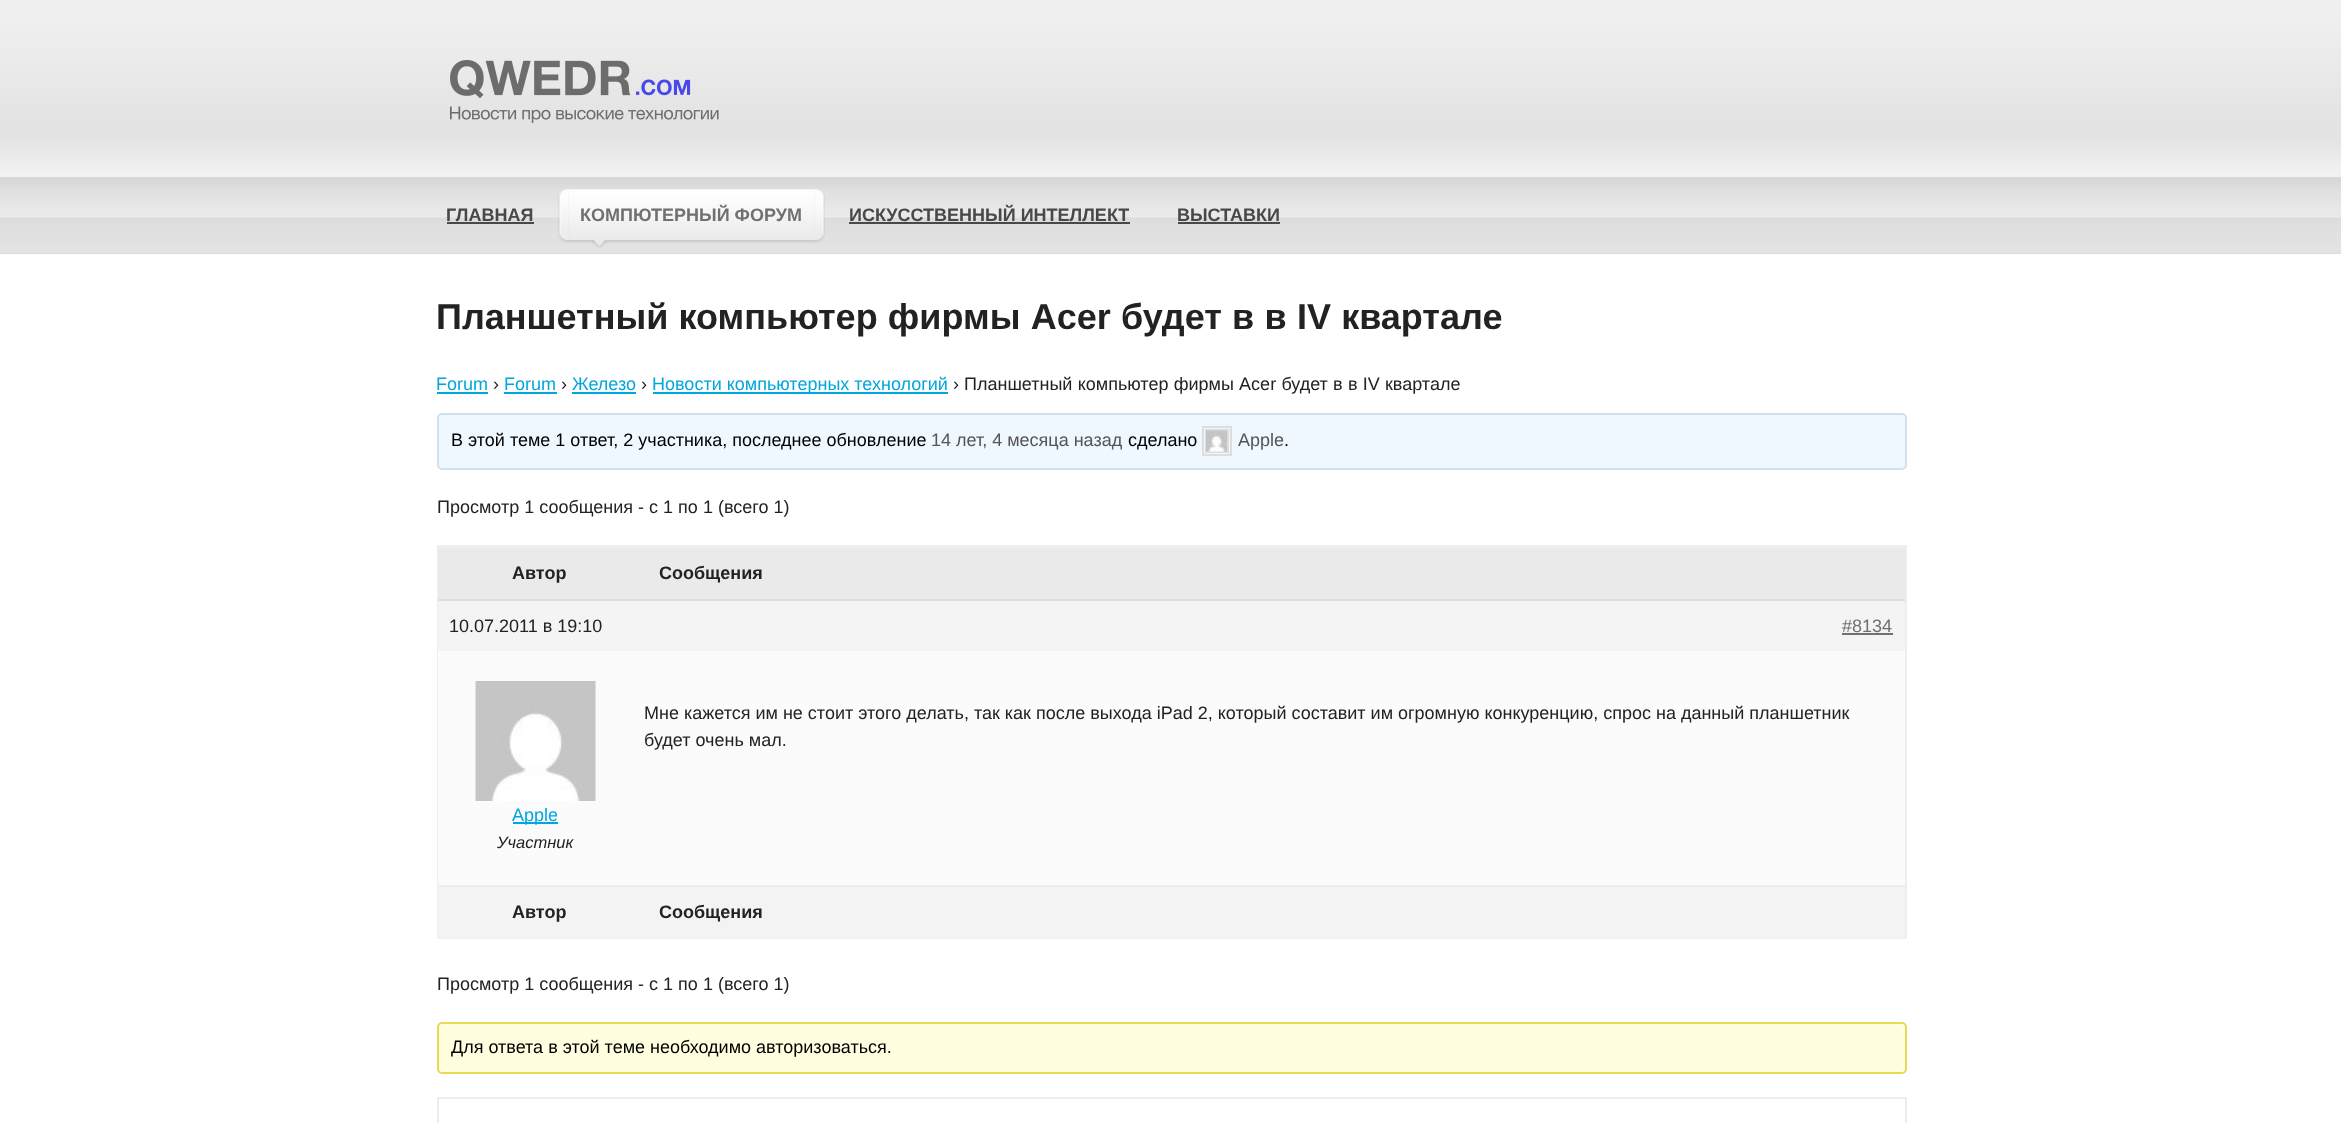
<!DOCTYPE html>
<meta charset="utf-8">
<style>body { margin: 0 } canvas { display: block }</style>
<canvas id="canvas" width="2341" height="1123"></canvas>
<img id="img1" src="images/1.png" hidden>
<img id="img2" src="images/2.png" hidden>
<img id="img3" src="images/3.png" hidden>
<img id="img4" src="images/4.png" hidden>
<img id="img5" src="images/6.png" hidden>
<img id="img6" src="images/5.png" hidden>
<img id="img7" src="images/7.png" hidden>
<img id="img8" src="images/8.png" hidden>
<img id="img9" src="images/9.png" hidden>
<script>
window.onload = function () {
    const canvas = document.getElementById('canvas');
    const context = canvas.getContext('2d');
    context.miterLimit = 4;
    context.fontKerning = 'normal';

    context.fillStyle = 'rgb(255, 255, 255)';
    context.fillRect(0, 0, 2341, 1123);
    context.drawImage(document.getElementById('img1'), 0, 0, 2341, 177);
    context.drawImage(document.getElementById('img2'), 450, 60, 269, 63);
    context.drawImage(document.getElementById('img3'), 0, 177, 2341, 77);
    context.fillStyle = 'rgb(72, 72, 72)';
    context.fillRect(447, 222, 87, 2);
    context.drawImage(document.getElementById('img4'), 558, 189, 11, 54);
    context.drawImage(document.getElementById('img5'), 814, 189, 11, 54);
    context.drawImage(document.getElementById('img6'), 568, 189, 247, 54);
    context.drawImage(document.getElementById('img7'), 592, 240, 14, 8);
    context.fillRect(849, 222, 281, 2);
    context.fillRect(1178, 222, 102, 2);
    context.fillStyle = 'rgb(0, 166, 222)';
    context.fillRect(437, 392, 51, 2);
    context.fillRect(504, 392, 53, 2);
    context.fillRect(572, 392, 64, 2);
    context.fillRect(653, 392, 295, 2);
    context.fillStyle = 'rgb(240, 248, 255)';
    context.beginPath();
    context.roundRect(438, 414, 1468, 55, 4);
    context.fill();
    context.strokeStyle = 'rgb(206, 225, 239)';
    context.lineWidth = 2;
    context.stroke();
    context.strokeStyle = 'rgb(221, 221, 221)';
    context.strokeRect(1203, 427, 28, 28);
    context.strokeRect(1206, 430, 22, 22);
    context.drawImage(document.getElementById('img8'), 1206, 430, 21, 22);
    context.strokeStyle = 'rgb(238, 238, 238)';
    context.strokeRect(438, 546, 1468, 392);
    context.fillStyle = 'rgb(234, 234, 234)';
    context.fillRect(438, 548, 1467, 51);
    context.fillStyle = 'rgb(238, 238, 238)';
    context.fillRect(438, 547, 1467, 1);
    context.fillStyle = 'rgb(244, 244, 244)';
    context.fillRect(438, 601, 1467, 50);
    context.fillStyle = 'rgb(221, 221, 221)';
    context.fillRect(438, 599, 1467, 2);
    context.fillStyle = 'rgb(112, 112, 112)';
    context.fillRect(1842, 633, 51, 2);
    context.fillStyle = 'rgb(251, 251, 251)';
    context.fillRect(438, 651, 1467, 234);
    context.drawImage(document.getElementById('img9'), 475, 681, 121, 120);
    context.fillStyle = 'rgb(0, 166, 222)';
    context.fillRect(513, 822, 45, 2);
    context.fillStyle = 'rgb(243, 243, 243)';
    context.fillRect(438, 887, 1467, 51);
    context.fillStyle = 'rgb(238, 238, 238)';
    context.fillRect(438, 885, 1467, 2);
    context.fillStyle = 'rgb(255, 255, 224)';
    context.beginPath();
    context.roundRect(438, 1023, 1468, 50, 4);
    context.fill();
    context.strokeStyle = 'rgb(230, 219, 85)';
    context.stroke();
    context.strokeStyle = 'rgb(238, 238, 238)';
    context.strokeRect(438, 1098, 1468, 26);
    context.font = 'bold 18px Liberation Sans';
    context.fillStyle = 'rgb(72, 72, 72)';
    context.fillText('ГЛАВНАЯ', 446, 221);
    context.fillStyle = 'rgb(112, 112, 112)';
    context.fillText('КОМПЮТЕРНЫЙ ФОРУМ', 580, 221);
    context.fillStyle = 'rgb(72, 72, 72)';
    context.fillText('ИСКУССТВЕННЫЙ ИНТЕЛЛЕКТ', 849, 221);
    context.fillText('ВЫСТАВКИ', 1177, 221);
    context.wordSpacing = '0.25px';
    context.font = 'bold 36px Liberation Sans';
    context.fillStyle = 'rgb(34, 34, 34)';
    context.fillText('Планшетный компьютер фирмы Acer будет в в IV квартале', 436, 329);
    context.wordSpacing = '0px';
    context.font = '18px Liberation Sans';
    context.fillStyle = 'rgb(0, 166, 222)';
    context.fillText('Forum', 436, 390);
    context.fillStyle = 'rgb(34, 34, 34)';
    context.fillText('›', 493, 390);
    context.fillStyle = 'rgb(0, 166, 222)';
    context.fillText('Forum', 504, 390);
    context.fillStyle = 'rgb(34, 34, 34)';
    context.fillText('›', 561, 390);
    context.fillStyle = 'rgb(0, 166, 222)';
    context.fillText('Железо', 572, 390);
    context.fillStyle = 'rgb(34, 34, 34)';
    context.fillText('›', 641, 390);
    context.fillStyle = 'rgb(0, 166, 222)';
    context.fillText('Новости компьютерных технологий', 652, 390);
    context.fillStyle = 'rgb(34, 34, 34)';
    context.fillText('›', 953, 390);
    context.wordSpacing = '0.25px';
    context.fillText('Планшетный компьютер фирмы Acer будет в в IV квартале', 964, 390);
    context.wordSpacing = '0px';
    context.fillStyle = 'rgb(0, 0, 0)';
    context.fillText('В этой теме 1 ответ, 2 участника, последнее обновление', 451, 446);
    context.fillStyle = 'rgb(85, 85, 85)';
    context.fillText('14 лет, 4 месяца назад', 931, 446);
    context.fillStyle = 'rgb(0, 0, 0)';
    context.fillText('сделано', 1128, 446);
    context.fillStyle = 'rgb(85, 85, 85)';
    context.fillText('Apple', 1238, 446);
    context.fillStyle = 'rgb(0, 0, 0)';
    context.fillText('.', 1284, 446);
    context.fillStyle = 'rgb(34, 34, 34)';
    context.fillText('Просмотр 1 сообщения - с 1 по 1 (всего 1)', 437, 513);
    context.font = 'bold 18px Liberation Sans';
    context.fillText('Автор', 512, 579);
    context.fillText('Сообщения', 659, 579);
    context.font = '18px Liberation Sans';
    context.fillText('10.07.2011 в 19:10', 449, 632);
    context.fillStyle = 'rgb(112, 112, 112)';
    context.fillText('#8134', 1842, 632);
    context.fillStyle = 'rgb(34, 34, 34)';
    context.fillText('Мне кажется им не стоит этого делать, так как после выхода iPad 2, который составит им огромную конкуренцию, спрос на данный планшетник', 644, 719);
    context.fillText('будет очень мал.', 644, 746);
    context.fillStyle = 'rgb(0, 166, 222)';
    context.fillText('Apple', 512, 821);
    context.font = 'italic 16.5px Liberation Sans';
    context.fillStyle = 'rgb(34, 34, 34)';
    context.fillText('Участник', 497, 848);
    context.font = 'bold 18px Liberation Sans';
    context.fillText('Автор', 512, 918);
    context.fillText('Сообщения', 659, 918);
    context.font = '18px Liberation Sans';
    context.fillText('Просмотр 1 сообщения - с 1 по 1 (всего 1)', 437, 990);
    context.fillStyle = 'rgb(0, 0, 0)';
    context.fillText('Для ответа в этой теме необходимо авторизоваться.', 451, 1053);
};
</script>
